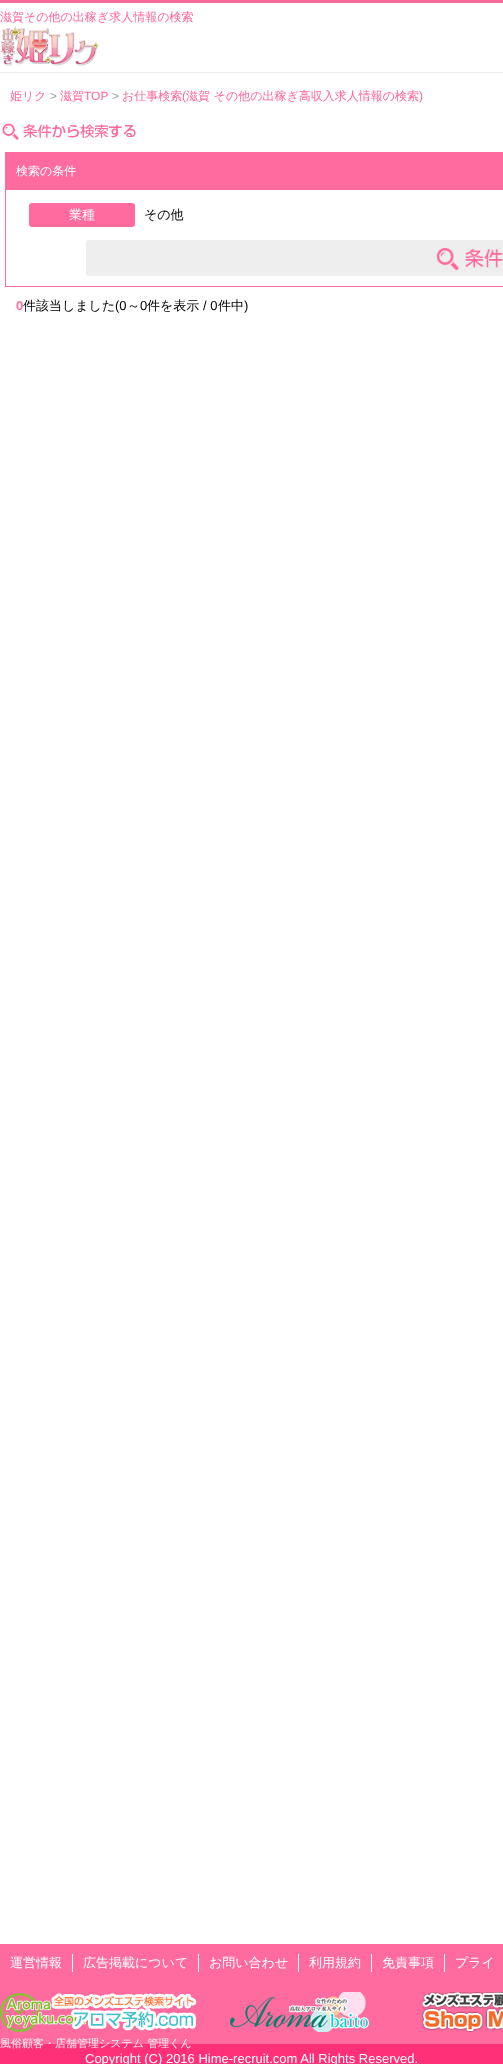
<!DOCTYPE html>
<meta charset="utf-8">
<style>body { margin: 0 } canvas { display: block }</style>
<canvas id="canvas" width="503" height="2064"></canvas>
<img id="img1" src="images/1.png" hidden>
<img id="img2" src="images/2.png" hidden>
<img id="img3" src="images/3.png" hidden>
<img id="img4" src="images/4.png" hidden>
<img id="img5" src="images/5.png" hidden>
<img id="img6" src="images/6.png" hidden>
<script>
window.onload = function () {
    const canvas = document.getElementById('canvas');
    const context = canvas.getContext('2d');
    context.miterLimit = 4;
    context.fontKerning = 'normal';

    context.fillStyle = 'rgb(255, 255, 255)';
    context.fillRect(0, 0, 503, 2064);
    context.fillStyle = 'rgb(238, 238, 238)';
    context.fillRect(0, 72, 503, 1);
    context.fillStyle = 'rgb(255, 107, 159)';
    context.fillRect(0, 0, 503, 3);
    context.drawImage(document.getElementById('img1'), 0, 26, 100, 40);
    context.drawImage(document.getElementById('img2'), 2, 123, 134, 17);
    context.strokeStyle = 'rgb(255, 107, 159)';
    context.strokeRect(5.5, 152.5, 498, 134);
    context.fillRect(6, 153, 497, 37);
    context.beginPath();
    context.roundRect(29, 203, 106, 24, 3);
    context.fill();
    context.fillStyle = 'rgb(238, 238, 238)';
    context.beginPath();
    context.roundRect(86, 240, 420, 36, 3);
    context.fill();
    context.drawImage(document.getElementById('img3'), 436, 248, 67, 22);
    context.fillStyle = 'rgb(255, 107, 159)';
    context.fillRect(0, 1944, 503, 100);
    context.fillStyle = 'rgb(255, 47, 120)';
    context.fillRect(0, 2044, 503, 20);
    context.fillStyle = 'rgb(255, 255, 255)';
    context.fillRect(72, 1954, 1, 18);
    context.fillRect(198, 1954, 1, 18);
    context.fillRect(298, 1954, 1, 18);
    context.fillRect(371, 1954, 1, 18);
    context.fillRect(444, 1954, 1, 18);
    context.drawImage(document.getElementById('img4'), 0, 1993, 197, 39);
    context.drawImage(document.getElementById('img5'), 230, 1992, 139, 40);
    context.drawImage(document.getElementById('img6'), 421, 1992, 82, 40);
    context.font = '500 12px WenQuanYi Zen Hei';
    context.fillStyle = 'rgb(255, 102, 153)';
    context.fillText('滋賀その他の出稼ぎ求人情報の検索', 0, 21);
    context.fillText('姫リク', 10, 100);
    context.font = '12px Liberation Sans';
    context.fillStyle = 'rgb(153, 153, 153)';
    context.fillText('>', 50, 100);
    context.font = '500 12px WenQuanYi Zen Hei';
    context.fillStyle = 'rgb(255, 102, 153)';
    context.fillText('滋賀', 60, 100);
    context.font = '12px Liberation Sans';
    context.fillText('TOP', 84, 100);
    context.fillStyle = 'rgb(153, 153, 153)';
    context.fillText('>', 112, 100);
    context.font = '500 12px WenQuanYi Zen Hei';
    context.fillStyle = 'rgb(255, 102, 153)';
    context.fillText('お仕事検索', 122, 100);
    context.font = '12px Liberation Sans';
    context.fillText('(', 182, 100);
    context.font = '500 12px WenQuanYi Zen Hei';
    context.fillText('滋賀 その他の出稼ぎ高収入求人情報の検索', 186, 100);
    context.font = '12px Liberation Sans';
    context.fillText(')', 419, 100);
    context.font = '500 12px WenQuanYi Zen Hei';
    context.fillStyle = 'rgb(255, 255, 255)';
    context.fillText('検索の条件', 16, 175);
    context.font = '500 13px WenQuanYi Zen Hei';
    context.fillText('業種', 69, 219);
    context.fillStyle = 'rgb(0, 0, 0)';
    context.fillText('その他', 144, 219);
    context.font = 'bold 13px Liberation Sans';
    context.fillStyle = 'rgb(255, 107, 159)';
    context.fillText('0', 16, 310);
    context.font = '500 13px WenQuanYi Zen Hei';
    context.fillStyle = 'rgb(0, 0, 0)';
    context.fillText('件該当しました', 23, 310);
    context.font = '13px Liberation Sans';
    context.fillText('(0', 115, 310);
    context.font = '500 13px WenQuanYi Zen Hei';
    context.fillText('～', 127, 310);
    context.font = '13px Liberation Sans';
    context.fillText('0', 140, 310);
    context.font = '500 13px WenQuanYi Zen Hei';
    context.fillText('件を表示', 147, 310);
    context.font = '13px Liberation Sans';
    context.fillText('/ 0', 203, 310);
    context.font = '500 13px WenQuanYi Zen Hei';
    context.fillText('件中', 218, 310);
    context.font = '13px Liberation Sans';
    context.fillText(')', 244, 310);
    context.font = '500 13px WenQuanYi Zen Hei';
    context.fillStyle = 'rgb(255, 255, 255)';
    context.fillText('運営情報', 10, 1967);
    context.fillText('広告掲載について', 83, 1967);
    context.fillText('お問い合わせ', 209, 1967);
    context.fillText('利用規約', 309, 1967);
    context.fillText('免責事項', 382, 1967);
    context.fillText('プライ', 455, 1967);
    context.font = '500 11px WenQuanYi Zen Hei';
    context.fillStyle = 'rgb(242, 242, 242)';
    context.fillText('風俗顧客・店舗管理システム 管理くん', 0, 2047);
    context.font = '13px Liberation Sans';
    context.fillStyle = 'rgb(255, 255, 255)';
    context.fillText('Copyright (C) 2016 Hime-recruit.com All Rights Reserved.', 85, 2063);
};
</script>
